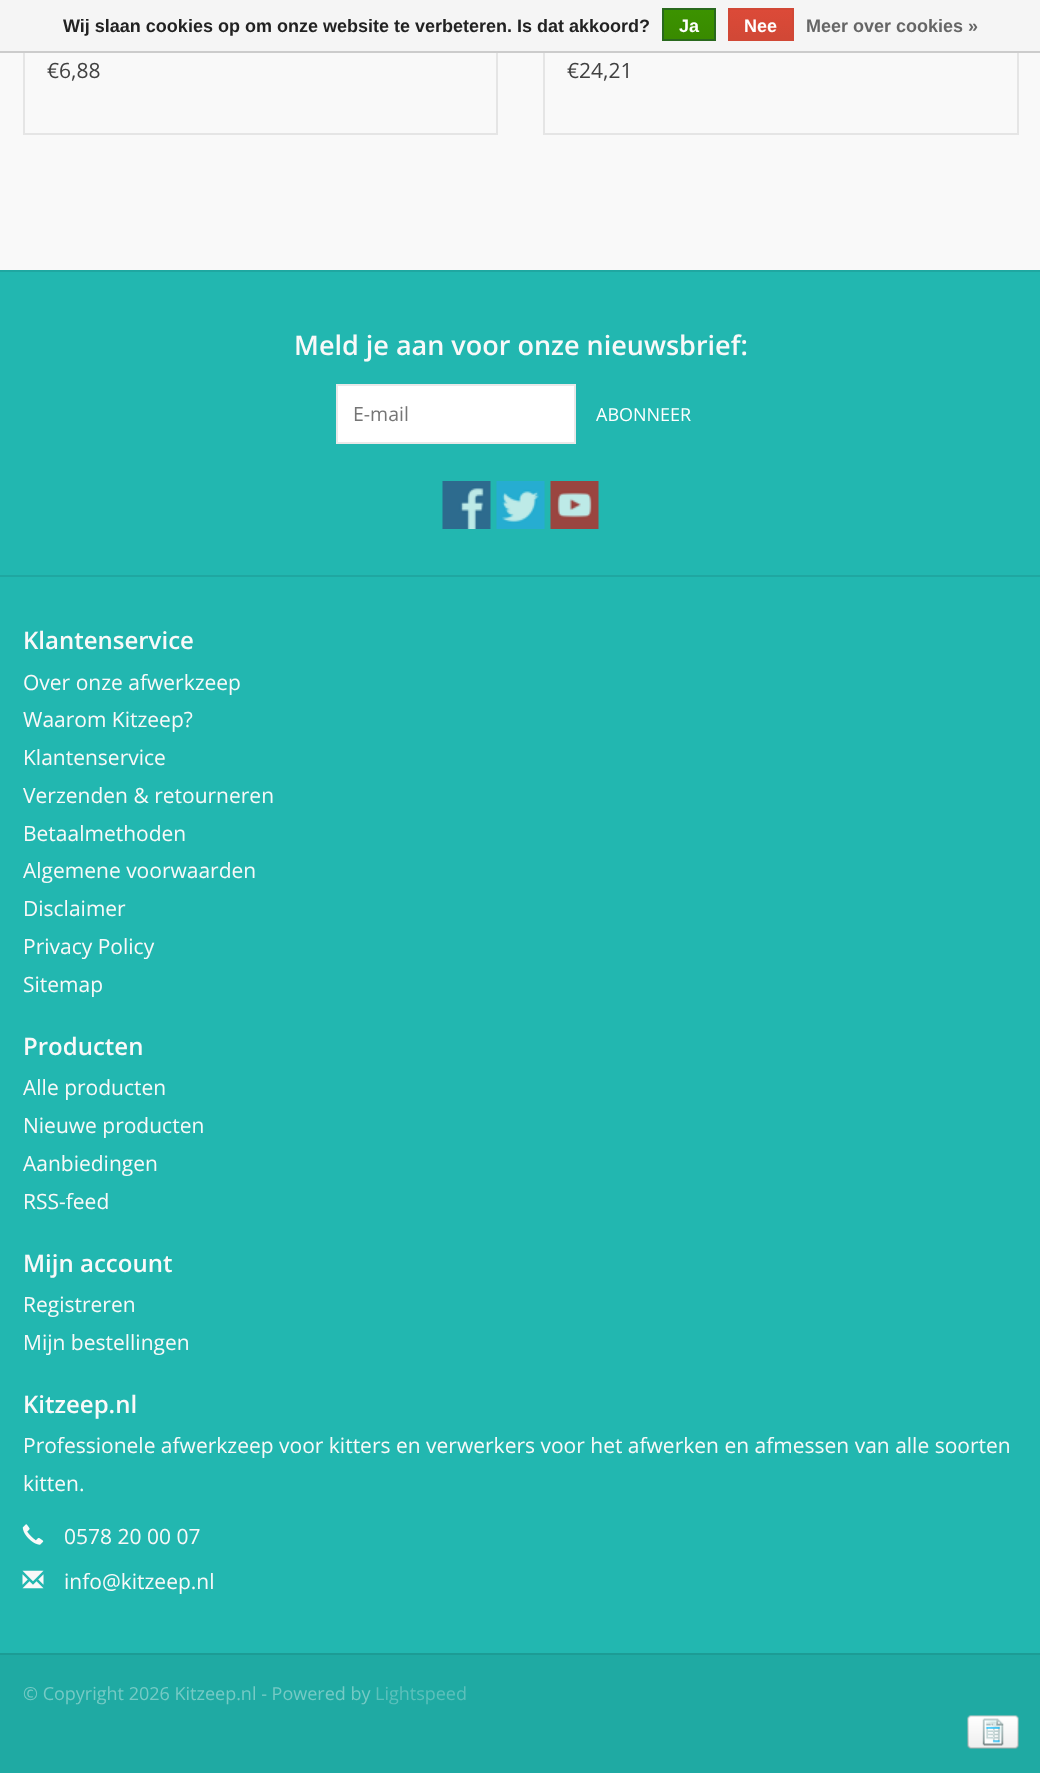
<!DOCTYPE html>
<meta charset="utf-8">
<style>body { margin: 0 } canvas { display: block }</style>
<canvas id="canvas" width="1040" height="1773"></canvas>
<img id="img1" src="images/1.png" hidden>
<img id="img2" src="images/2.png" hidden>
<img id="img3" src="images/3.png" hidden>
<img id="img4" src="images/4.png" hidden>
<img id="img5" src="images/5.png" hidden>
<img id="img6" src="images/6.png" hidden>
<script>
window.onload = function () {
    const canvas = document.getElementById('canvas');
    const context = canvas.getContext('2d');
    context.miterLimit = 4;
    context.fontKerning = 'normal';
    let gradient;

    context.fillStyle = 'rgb(249, 249, 249)';
    context.fillRect(0, 0, 1040, 1773);
    context.strokeStyle = 'rgb(229, 229, 229)';
    context.lineWidth = 2;
    context.strokeRect(24, 4, 473, 130);
    context.strokeRect(544, 4, 474, 130);
    context.fillStyle = 'rgb(245, 245, 245)';
    context.fillRect(0, 0, 1040, 51);
    context.fillStyle = 'rgb(204, 204, 204)';
    context.fillRect(0, 51, 1040, 2);
    gradient = context.createLinearGradient(689, 9, 689, 39);
    gradient.addColorStop(0, 'rgb(60, 147, 0)');
    gradient.addColorStop(1, 'rgb(57, 138, 0)');
    context.fillStyle = gradient;
    context.fillRect(664, 10, 50, 29);
    context.strokeStyle = 'rgb(41, 105, 29)';
    context.strokeRect(663, 9, 52, 31);
    gradient = context.createLinearGradient(761, 9, 761, 39);
    gradient.addColorStop(0, 'rgb(220, 74, 56)');
    gradient.addColorStop(1, 'rgb(209, 72, 54)');
    context.fillStyle = gradient;
    context.fillRect(730, 10, 62, 29);
    context.strokeStyle = 'rgb(209, 72, 54)';
    context.strokeRect(729, 9, 64, 31);
    context.fillStyle = 'rgb(34, 183, 176)';
    context.fillRect(0, 272, 1040, 1381);
    context.fillStyle = 'rgb(31, 167, 161)';
    context.fillRect(0, 270, 1040, 2);
    context.fillStyle = 'rgb(255, 255, 255)';
    context.beginPath();
    context.rect(337, 385, 238, 58);
    context.fill();
    context.strokeStyle = 'rgb(233, 233, 233)';
    context.stroke();
    context.drawImage(document.getElementById('img1'), 442, 481, 49, 48);
    context.drawImage(document.getElementById('img2'), 496, 481, 49, 48);
    context.drawImage(document.getElementById('img3'), 550, 481, 49, 48);
    context.fillStyle = 'rgb(31, 167, 161)';
    context.fillRect(0, 575, 1040, 2);
    context.drawImage(document.getElementById('img4'), 22, 1524, 22, 21);
    context.drawImage(document.getElementById('img5'), 22, 1570, 22, 19);
    context.fillStyle = 'rgb(28, 156, 149)';
    context.fillRect(0, 1653, 1040, 2);
    context.fillStyle = 'rgb(31, 170, 163)';
    context.fillRect(0, 1655, 1040, 118);
    context.drawImage(document.getElementById('img6'), 967, 1715, 52, 34);
    context.font = 'bold 18px Liberation Sans';
    context.fillStyle = 'rgb(34, 34, 34)';
    context.fillText('Wij slaan cookies op om onze website te verbeteren. Is dat akkoord?', 63, 32);
    context.fillStyle = 'rgb(255, 255, 255)';
    context.fillText('Ja', 679, 32);
    context.fillText('Nee', 744, 32);
    context.fillStyle = 'rgb(102, 102, 102)';
    context.fillText('Meer over cookies »', 806, 32);
    context.font = '21px Open Sans';
    context.fillStyle = 'rgb(65, 65, 65)';
    context.fillText('€6,88', 47, 78);
    context.fillText('€24,21', 567, 78);
    context.font = '600 27px Open Sans';
    context.fillStyle = 'rgb(249, 249, 249)';
    context.fillText('Meld je aan voor onze nieuwsbrief:', 294, 355);
    context.font = '19.5px Open Sans';
    context.fillStyle = 'rgb(117, 117, 117)';
    context.fillText('E-mail', 353, 421);
    context.font = '18px Open Sans';
    context.fillStyle = 'rgb(255, 255, 255)';
    context.fillText('ABONNEER', 596, 421);
    context.font = '600 24px Open Sans';
    context.fillStyle = 'rgb(249, 249, 249)';
    context.fillText('Klantenservice', 23, 649);
    context.font = '21px Open Sans';
    context.fillText('Over onze afwerkzeep', 23, 690);
    context.fillText('Waarom Kitzeep?', 23, 727);
    context.fillText('Klantenservice', 23, 765);
    context.fillText('Verzenden & retourneren', 23, 803);
    context.fillText('Betaalmethoden', 23, 841);
    context.fillText('Algemene voorwaarden', 23, 878);
    context.fillText('Disclaimer', 23, 916);
    context.fillText('Privacy Policy', 23, 954);
    context.fillText('Sitemap', 23, 992);
    context.font = '600 24px Open Sans';
    context.fillText('Producten', 23, 1055);
    context.font = '21px Open Sans';
    context.fillText('Alle producten', 23, 1095);
    context.fillText('Nieuwe producten', 23, 1133);
    context.fillText('Aanbiedingen', 23, 1171);
    context.fillText('RSS-feed', 23, 1209);
    context.font = '600 24px Open Sans';
    context.fillText('Mijn account', 23, 1272);
    context.font = '21px Open Sans';
    context.fillText('Registreren', 23, 1312);
    context.fillText('Mijn bestellingen', 23, 1350);
    context.font = '600 24px Open Sans';
    context.fillText('Kitzeep.nl', 23, 1413);
    context.font = '21px Open Sans';
    context.fillText('Professionele afwerkzeep voor kitters en verwerkers voor het afwerken en afmessen van alle soorten', 23, 1453);
    context.fillText('kitten.', 23, 1491);
    context.fillText('0578 20 00 07', 64, 1544);
    context.fillText('info@kitzeep.nl', 64, 1589);
    context.font = '18px Open Sans';
    context.fillStyle = 'rgb(118, 202, 197)';
    context.fillText('© Copyright 2026 Kitzeep.nl - Powered by', 23, 1700);
    context.fillStyle = 'rgb(92, 192, 187)';
    context.fillText('Lightspeed', 375, 1700);
};
</script>
